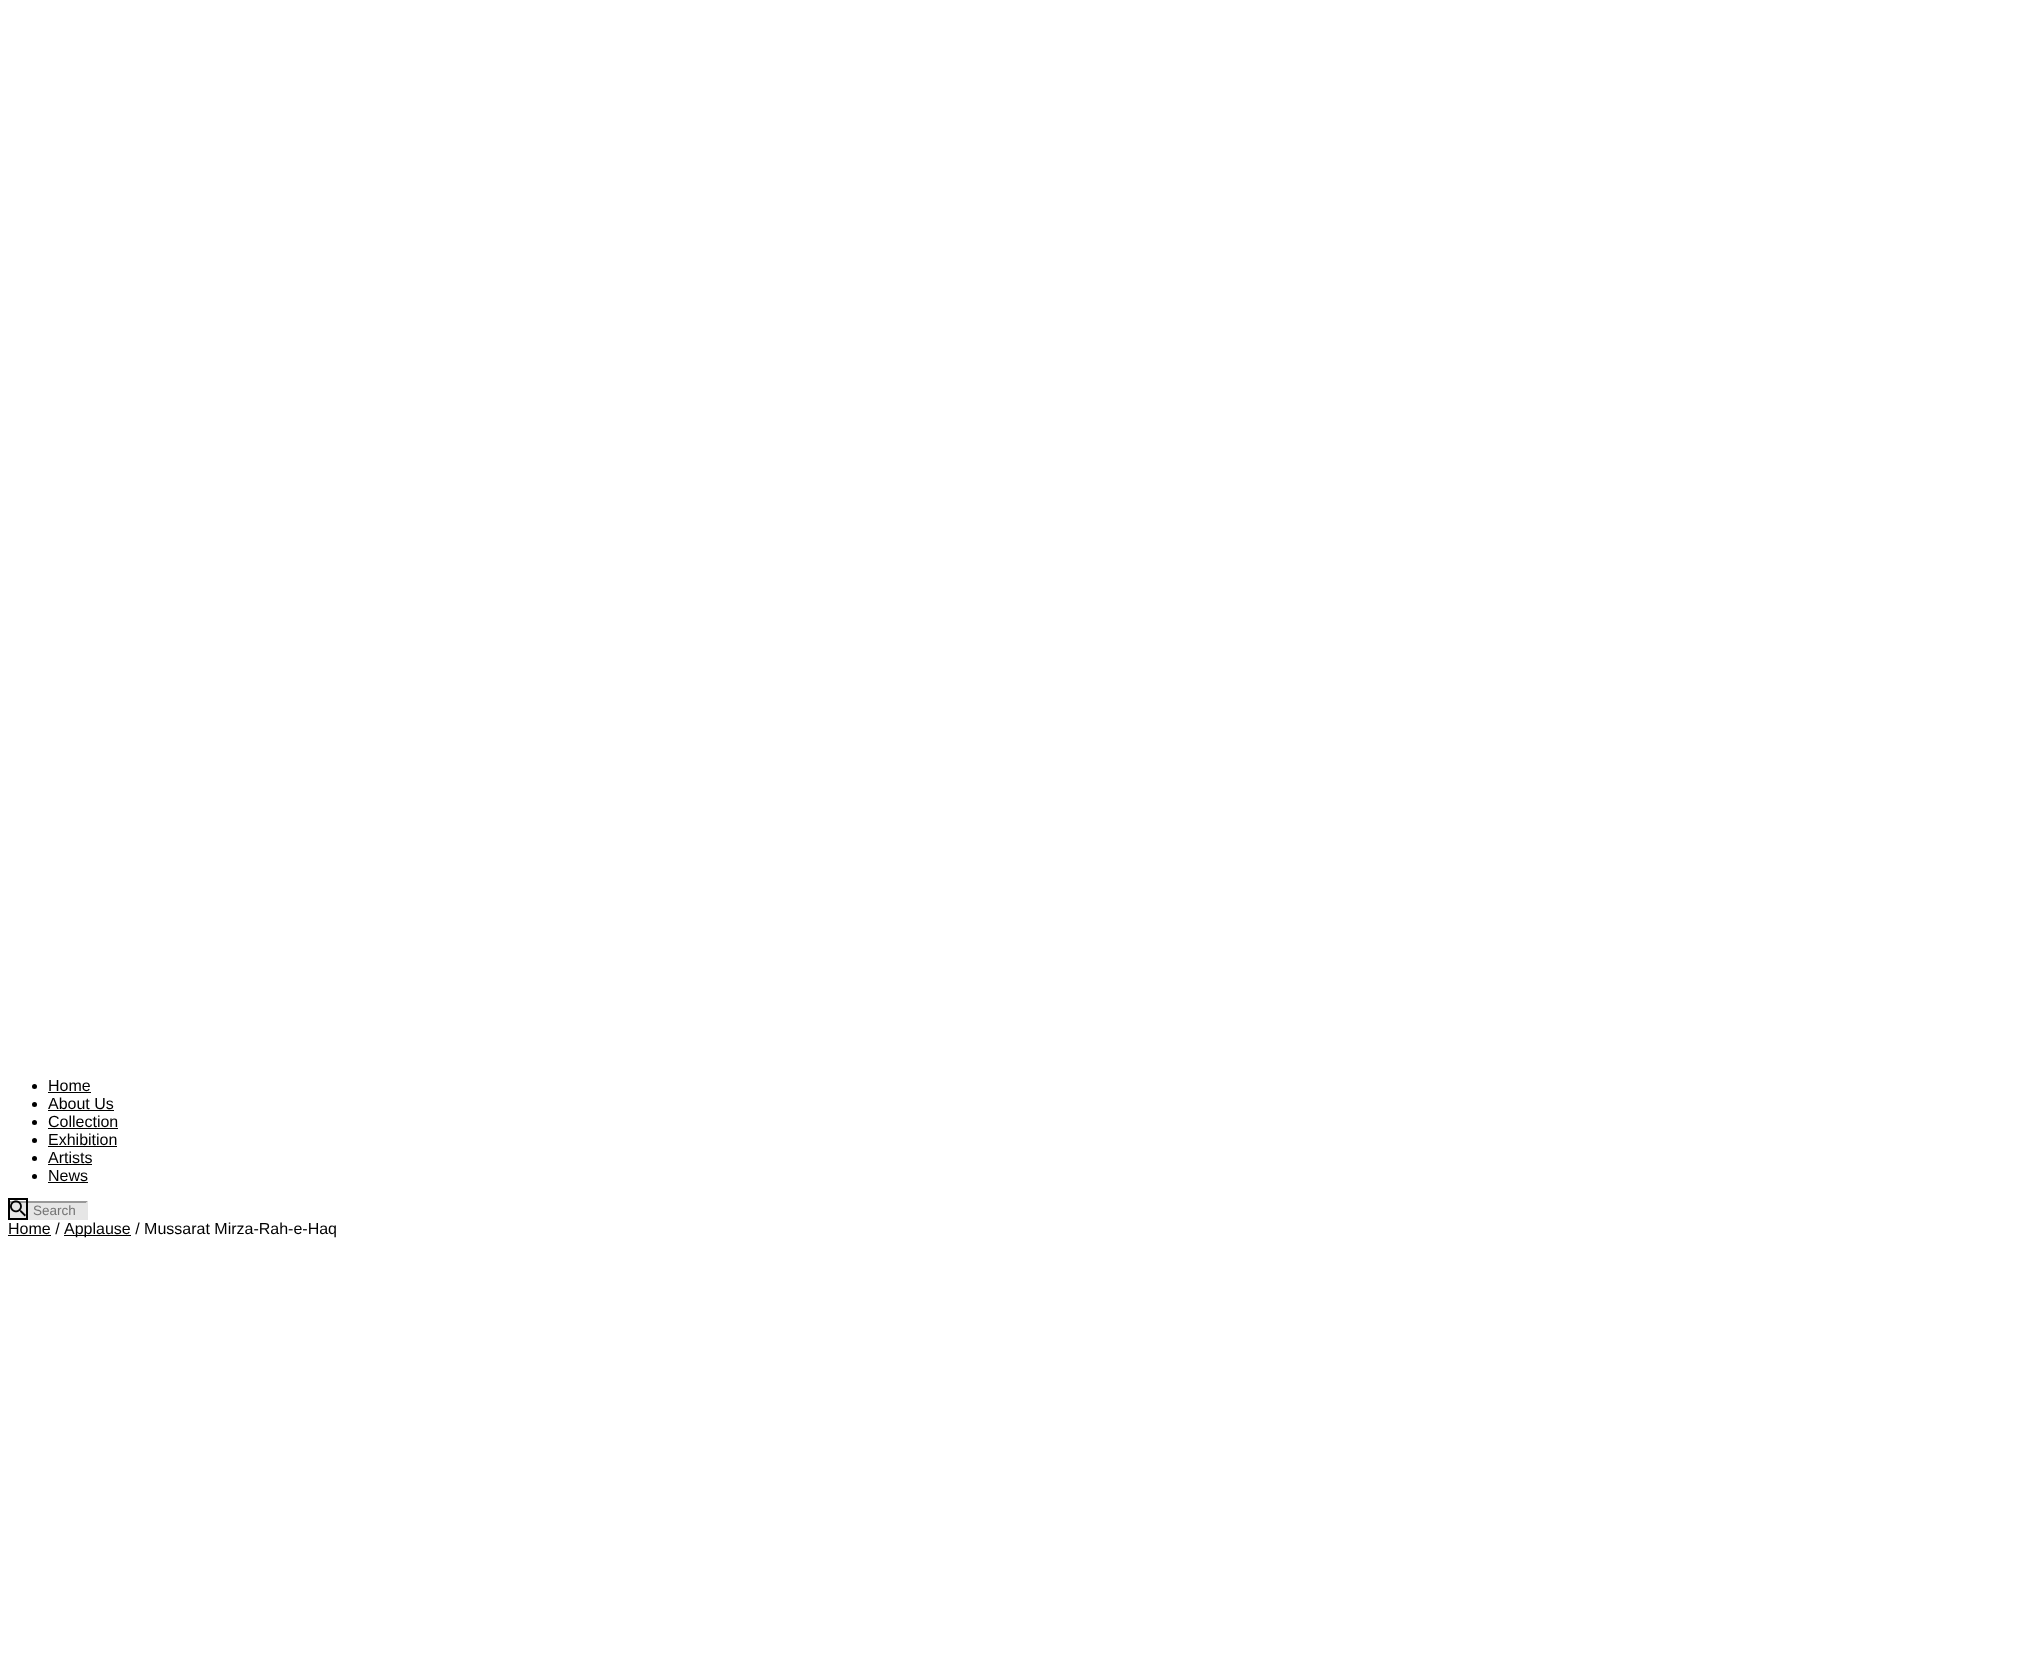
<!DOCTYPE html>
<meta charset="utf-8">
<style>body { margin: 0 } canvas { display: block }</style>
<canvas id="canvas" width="2043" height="1675"></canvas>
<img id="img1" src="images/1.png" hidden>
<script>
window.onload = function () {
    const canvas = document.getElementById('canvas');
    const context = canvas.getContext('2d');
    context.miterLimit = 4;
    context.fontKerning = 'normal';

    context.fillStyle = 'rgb(255, 255, 255)';
    context.fillRect(0, 0, 2043, 1675);
    context.fillStyle = 'rgb(0, 0, 0)';
    context.beginPath();
    context.arc(34.5, 1086.5, 2.5, 0, 2 * Math.PI);
    context.fill();
    context.fillRect(48, 1092, 43, 1);
    context.beginPath();
    context.arc(34.5, 1104.5, 2.5, 0, 2 * Math.PI);
    context.fill();
    context.fillRect(48, 1110, 66, 1);
    context.beginPath();
    context.arc(34.5, 1122.5, 2.5, 0, 2 * Math.PI);
    context.fill();
    context.fillRect(48, 1128, 70, 1);
    context.beginPath();
    context.arc(34.5, 1140.5, 2.5, 0, 2 * Math.PI);
    context.fill();
    context.fillRect(48, 1146, 69, 1);
    context.beginPath();
    context.arc(34.5, 1158.5, 2.5, 0, 2 * Math.PI);
    context.fill();
    context.fillRect(48, 1164, 44, 1);
    context.beginPath();
    context.arc(34.5, 1176.5, 2.5, 0, 2 * Math.PI);
    context.fill();
    context.fillRect(48, 1182, 40, 1);
    context.fillStyle = 'rgb(230, 230, 230)';
    context.fillRect(10, 1201, 78, 19);
    context.fillStyle = 'rgb(153, 153, 153)';
    context.beginPath();
    context.moveTo(8, 1201);
    context.lineTo(88, 1201);
    context.lineTo(86, 1203);
    context.lineTo(10, 1203);
    context.closePath();
    context.fill();
    context.strokeStyle = 'rgb(0, 0, 0)';
    context.lineWidth = 2;
    context.strokeRect(9, 1199, 18, 20);
    context.drawImage(document.getElementById('img1'), 10, 1200, 16, 17);
    context.fillStyle = 'rgb(230, 230, 230)';
    context.beginPath();
    context.moveTo(88, 1201);
    context.lineTo(88, 1220);
    context.lineTo(86, 1218);
    context.lineTo(86, 1203);
    context.closePath();
    context.fill();
    context.fillStyle = 'rgb(0, 0, 0)';
    context.fillRect(8, 1235, 43, 1);
    context.fillRect(64, 1235, 67, 1);
    context.font = '16px Liberation Sans';
    context.fillText('Home', 48, 1091);
    context.fillText('About Us', 48, 1109);
    context.fillText('Collection', 48, 1127);
    context.fillText('Exhibition', 48, 1145);
    context.fillText('Artists', 48, 1163);
    context.fillText('News', 48, 1181);
    context.font = '13.5px Liberation Sans';
    context.fillStyle = 'rgb(117, 117, 117)';
    context.fillText('Search', 33, 1215);
    context.font = '16px Liberation Sans';
    context.fillStyle = 'rgb(0, 0, 0)';
    context.fillText('Home /', 8, 1234);
    context.fillText('Applause / Mussarat Mirza-Rah-e-Haq', 64, 1234);
};
</script>
